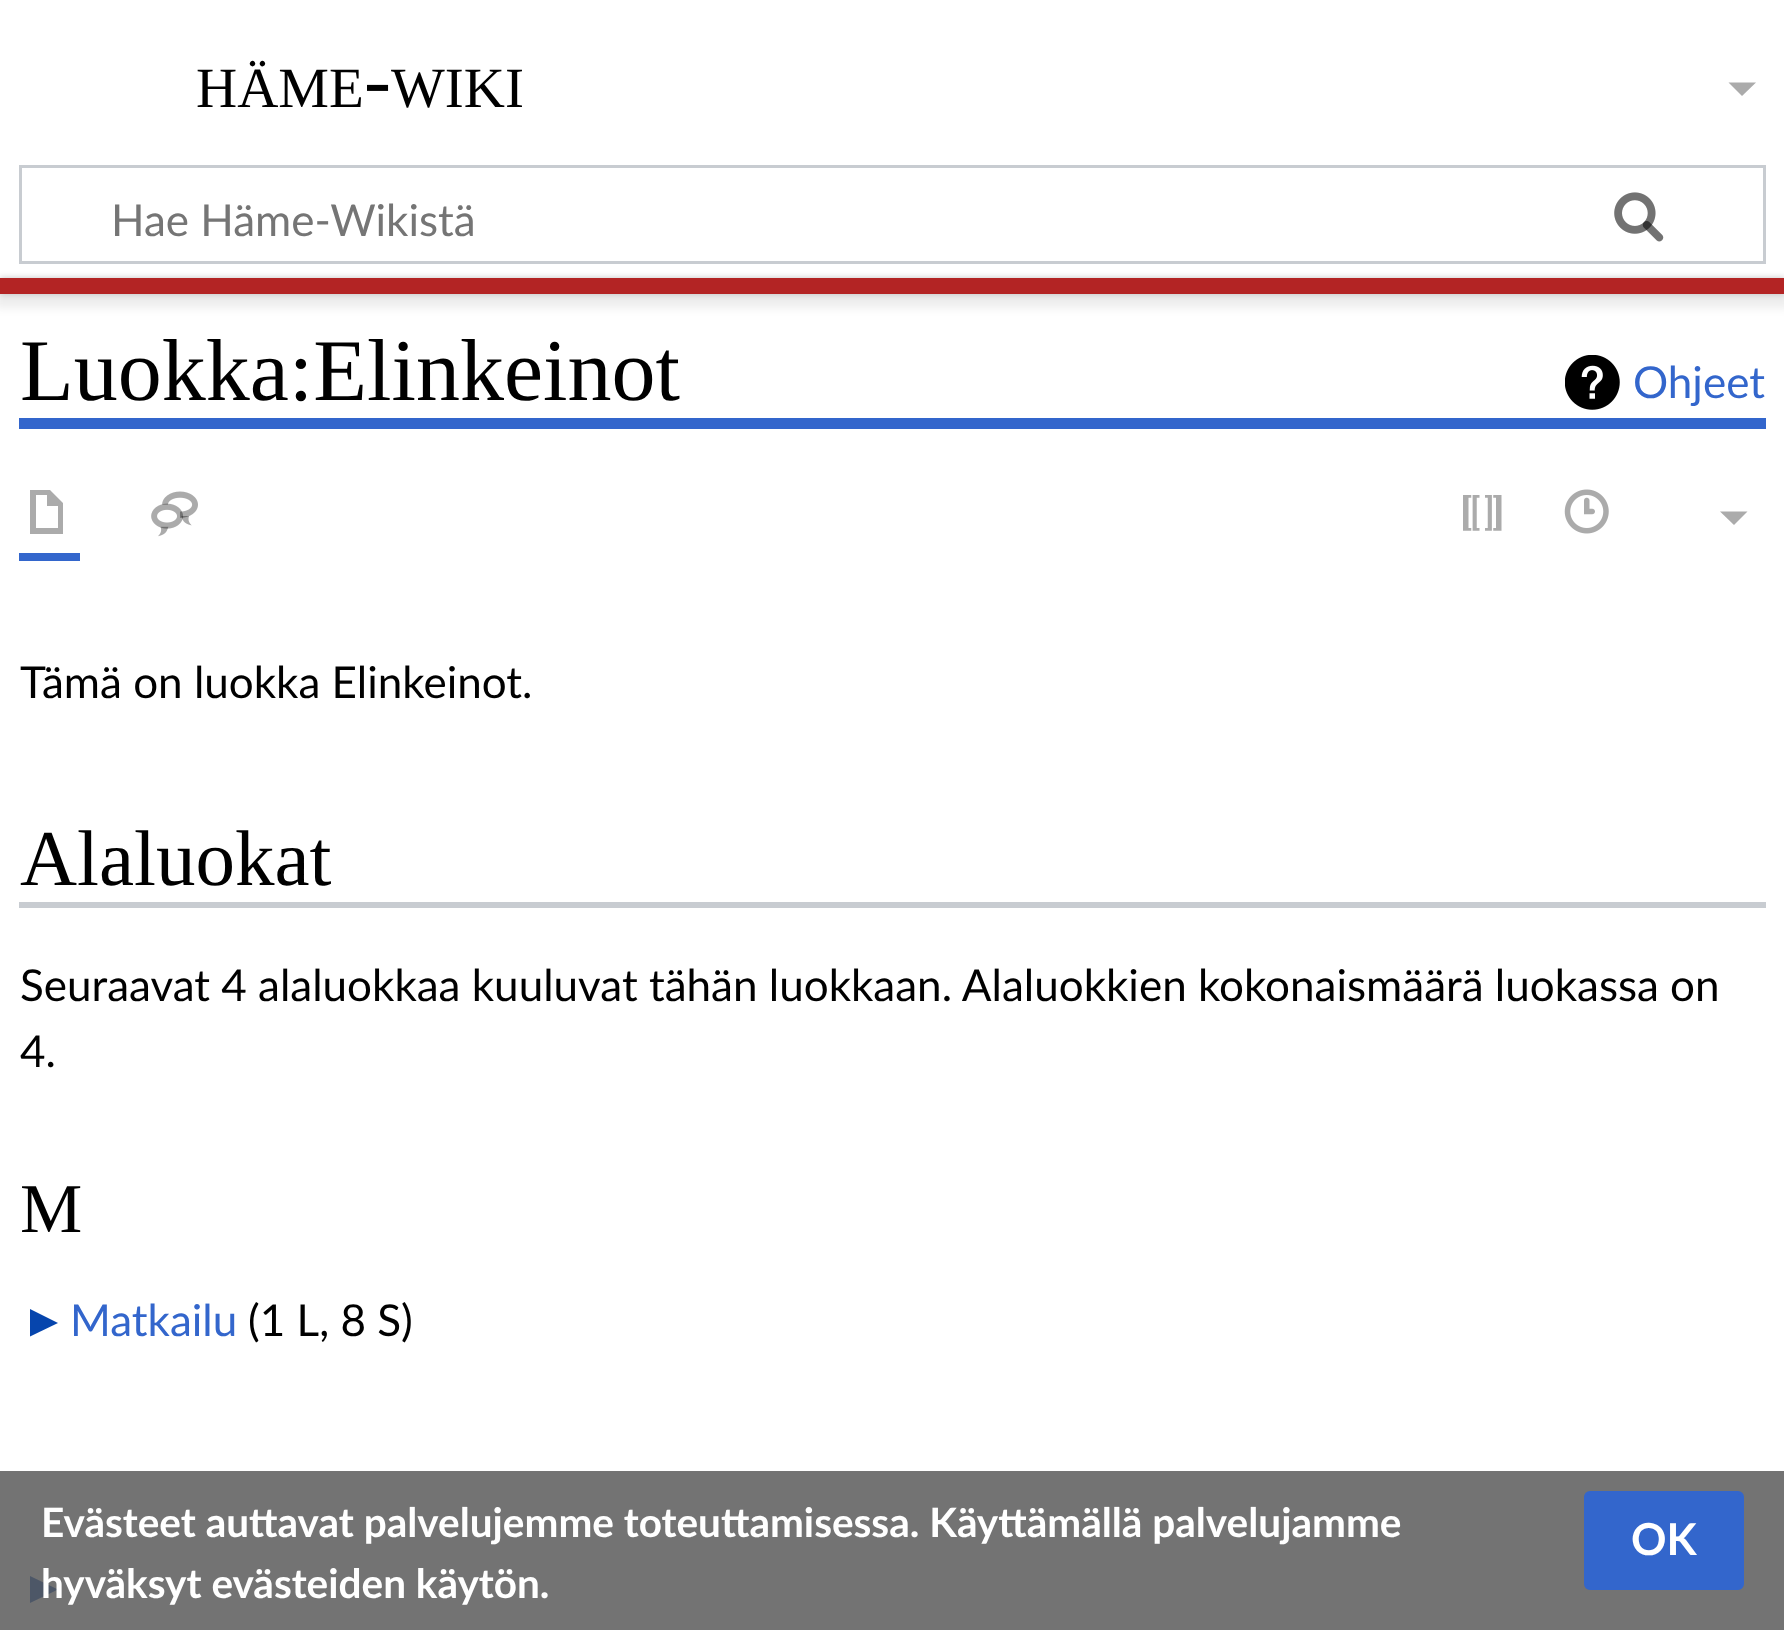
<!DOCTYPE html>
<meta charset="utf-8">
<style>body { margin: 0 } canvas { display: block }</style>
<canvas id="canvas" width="1784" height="1630"></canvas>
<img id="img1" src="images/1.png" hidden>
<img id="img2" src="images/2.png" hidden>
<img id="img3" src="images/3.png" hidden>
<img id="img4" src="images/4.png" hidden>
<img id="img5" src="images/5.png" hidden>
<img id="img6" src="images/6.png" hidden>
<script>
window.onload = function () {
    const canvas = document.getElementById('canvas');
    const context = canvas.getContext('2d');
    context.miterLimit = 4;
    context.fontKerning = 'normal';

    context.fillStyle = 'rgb(255, 255, 255)';
    context.fillRect(0, 0, 1784, 1630);
    context.fillStyle = 'rgb(171, 171, 171)';
    context.beginPath();
    context.moveTo(1756, 82.5);
    context.lineTo(1742, 96);
    context.lineTo(1728.5, 82.5);
    context.closePath();
    context.fill();
    context.strokeStyle = 'rgb(200, 204, 209)';
    context.lineWidth = 3;
    context.strokeRect(20.5, 166.5, 1744, 96);
    context.drawImage(document.getElementById('img1'), 1614, 192, 50, 50);
    context.drawImage(document.getElementById('img2'), 1614, 192, 50, 50);
    context.fillStyle = 'rgba(0, 0, 0, 0.2)';
    context.filter = 'blur(3px)';
    context.beginPath();
    context.rect(0, 278, 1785, 16);
    context.fill();
    context.filter = 'none';
    context.fillStyle = 'rgba(0, 0, 0, 0.07)';
    context.filter = 'blur(4px)';
    context.beginPath();
    context.rect(-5, 281, 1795, 27);
    context.fill();
    context.filter = 'none';
    context.fillStyle = 'rgb(179, 36, 36)';
    context.fillRect(0, 278, 1784, 16);
    context.fillStyle = 'rgb(51, 102, 204)';
    context.fillRect(19, 418, 1747, 11);
    context.drawImage(document.getElementById('img3'), 1565, 355, 55, 55);
    context.fillRect(19, 553, 61, 8);
    context.fillStyle = 'rgb(171, 171, 171)';
    context.beginPath();
    context.moveTo(30, 490);
    context.lineTo(30, 534);
    context.lineTo(63, 534);
    context.lineTo(63, 503);
    context.lineTo(50, 490);
    context.closePath();
    context.moveTo(36, 495);
    context.lineTo(47, 495);
    context.lineTo(47, 506);
    context.lineTo(58, 506);
    context.lineTo(58, 528);
    context.lineTo(36, 528);
    context.closePath();
    context.fill();
    context.drawImage(document.getElementById('img4'), 151, 491, 47, 46);
    context.drawImage(document.getElementById('img5'), 1463, 495, 39, 36);
    context.drawImage(document.getElementById('img6'), 1564, 489, 45, 45);
    context.beginPath();
    context.moveTo(1747.5, 511.5);
    context.lineTo(1734, 525);
    context.lineTo(1720, 511.5);
    context.closePath();
    context.fill();
    context.fillStyle = 'rgb(200, 204, 209)';
    context.fillRect(19, 902, 1747, 6);
    context.fillStyle = 'rgb(6, 69, 173)';
    context.beginPath();
    context.moveTo(30, 1336.5);
    context.lineTo(30, 1309);
    context.lineTo(58, 1323);
    context.closePath();
    context.fill();
    context.beginPath();
    context.moveTo(30, 1603);
    context.lineTo(30, 1576);
    context.lineTo(58, 1589.5);
    context.closePath();
    context.fill();
    context.fillStyle = 'rgba(90, 90, 90, 0.85)';
    context.fillRect(0, 1471, 1784, 159);
    context.fillStyle = 'rgb(51, 102, 204)';
    context.beginPath();
    context.roundRect(1585.5, 1492.5, 157, 96, 4.5);
    context.fill();
    context.strokeStyle = 'rgb(51, 102, 204)';
    context.stroke();
    context.font = '57px Liberation Serif';
    context.fillStyle = 'rgb(0, 0, 0)';
    context.fillText('HÄME', 196, 107);
    context.font = '81px Liberation Serif';
    context.fillText('-', 364, 107);
    context.font = '57px Liberation Serif';
    context.fillText('WIKI', 391, 107);
    context.font = '44px Lato';
    context.fillStyle = 'rgb(117, 117, 117)';
    context.fillText('Hae Häme-Wikistä', 111, 236);
    context.font = '88px Liberation Serif';
    context.fillStyle = 'rgb(0, 0, 0)';
    context.fillText('Luokka:Elinkeinot', 20, 400);
    context.font = '44px Lato';
    context.fillStyle = 'rgb(51, 102, 204)';
    context.fillText('Ohjeet', 1633, 398);
    context.fillStyle = 'rgb(0, 0, 0)';
    context.fillText('Tämä on luokka Elinkeinot.', 20, 698);
    context.font = '79px Liberation Serif';
    context.fillText('Alaluokat', 20, 885);
    context.font = '44px Lato';
    context.fillText('Seuraavat 4 alaluokkaa kuuluvat tähän luokkaan. Alaluokkien kokonaismäärä luokassa on', 20, 1001);
    context.fillText('4.', 20, 1067);
    context.font = '70px Liberation Serif';
    context.fillText('M', 20, 1232);
    context.font = '44px Lato';
    context.fillStyle = 'rgb(51, 102, 204)';
    context.fillText('Matkailu', 70, 1336);
    context.fillStyle = 'rgb(0, 0, 0)';
    context.fillText('(1 L, 8 S)', 248, 1336);
    context.font = 'bold 40.5px Lato';
    context.fillStyle = 'rgb(255, 255, 255)';
    context.fillText('Evästeet auttavat palvelujemme toteuttamisessa. Käyttämällä palvelujamme', 41, 1537);
    context.fillText('hyväksyt evästeiden käytön.', 41, 1598);
    context.font = 'bold 44px Lato';
    context.fillText('OK', 1631, 1555);
};
</script>
